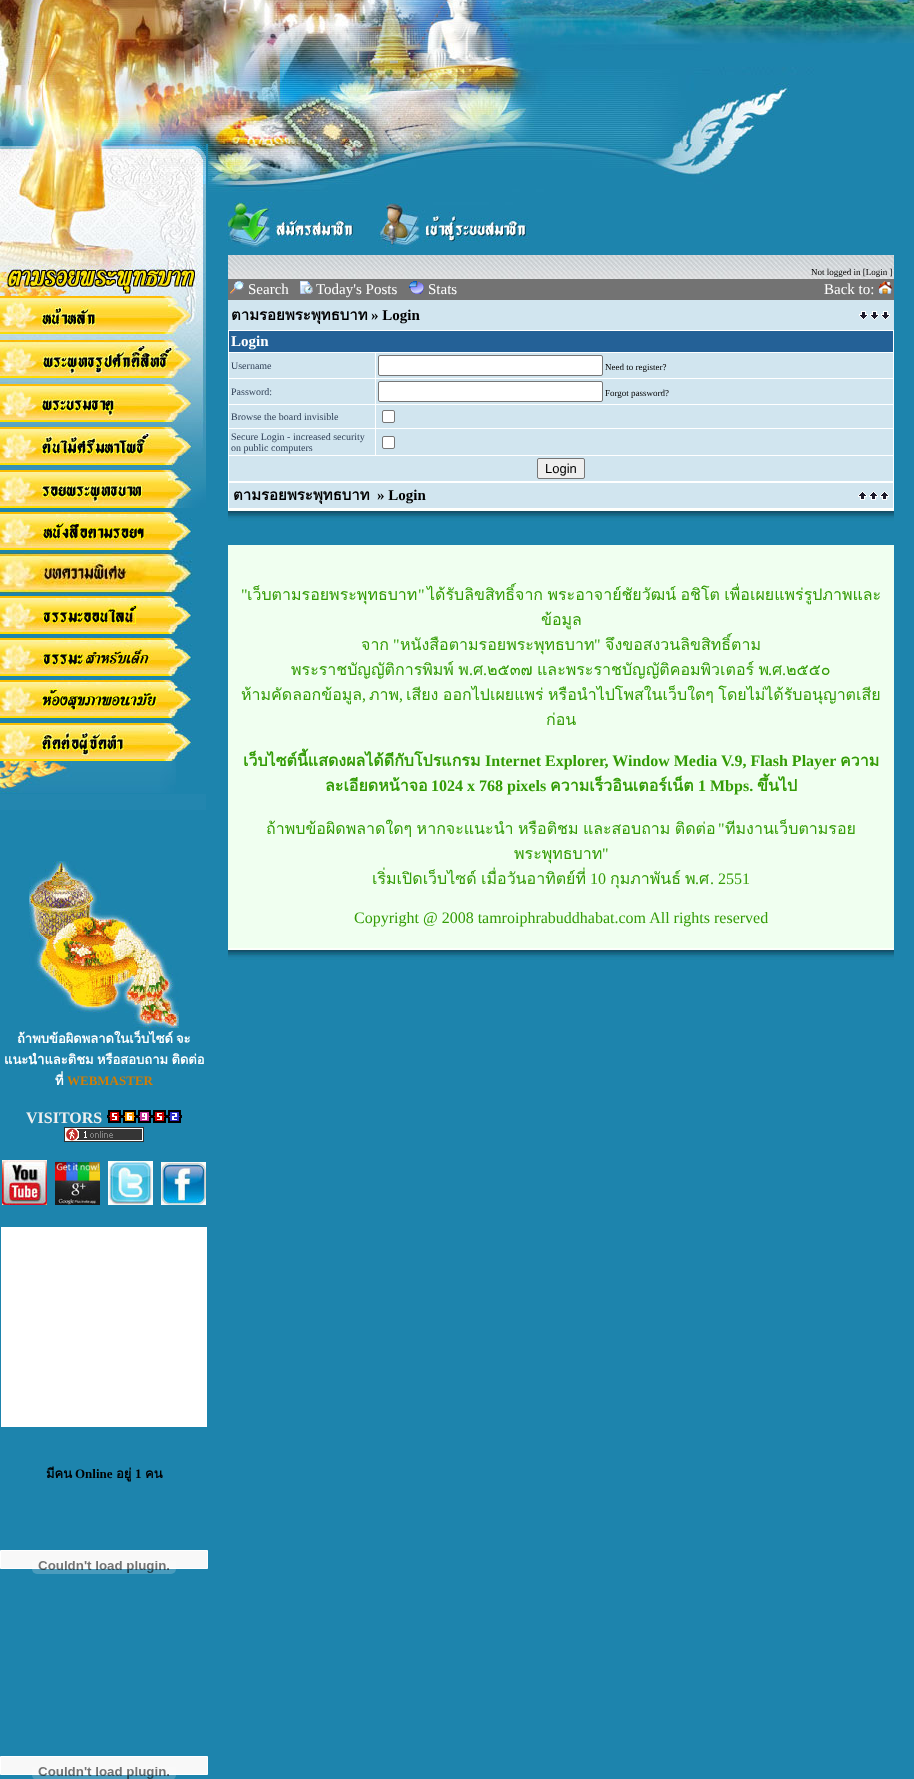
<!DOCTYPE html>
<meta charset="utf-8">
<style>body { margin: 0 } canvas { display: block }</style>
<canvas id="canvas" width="914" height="1779"></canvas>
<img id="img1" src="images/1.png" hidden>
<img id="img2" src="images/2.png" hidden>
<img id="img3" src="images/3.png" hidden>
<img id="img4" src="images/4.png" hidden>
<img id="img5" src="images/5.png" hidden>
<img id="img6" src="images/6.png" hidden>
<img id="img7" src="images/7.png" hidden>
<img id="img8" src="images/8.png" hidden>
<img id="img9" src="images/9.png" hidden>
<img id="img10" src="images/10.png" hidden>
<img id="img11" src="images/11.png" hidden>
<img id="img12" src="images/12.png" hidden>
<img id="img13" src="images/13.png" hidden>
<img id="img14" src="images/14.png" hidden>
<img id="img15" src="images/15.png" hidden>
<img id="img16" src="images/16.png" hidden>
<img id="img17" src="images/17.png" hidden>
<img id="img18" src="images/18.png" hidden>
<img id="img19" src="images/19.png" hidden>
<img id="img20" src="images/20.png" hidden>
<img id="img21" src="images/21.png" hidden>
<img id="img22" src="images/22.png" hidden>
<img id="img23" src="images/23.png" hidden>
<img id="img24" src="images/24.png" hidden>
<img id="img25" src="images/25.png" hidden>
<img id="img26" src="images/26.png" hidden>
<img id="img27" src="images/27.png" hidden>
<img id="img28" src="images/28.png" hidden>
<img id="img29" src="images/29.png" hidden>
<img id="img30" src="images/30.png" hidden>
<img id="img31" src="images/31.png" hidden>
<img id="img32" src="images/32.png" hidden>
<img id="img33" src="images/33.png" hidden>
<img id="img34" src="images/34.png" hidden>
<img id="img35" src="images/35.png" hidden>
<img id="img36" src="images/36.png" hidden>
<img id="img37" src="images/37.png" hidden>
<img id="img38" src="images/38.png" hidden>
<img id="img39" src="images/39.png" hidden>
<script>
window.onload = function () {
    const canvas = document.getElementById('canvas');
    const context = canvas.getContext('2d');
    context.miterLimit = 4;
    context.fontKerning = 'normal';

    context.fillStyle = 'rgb(29, 132, 173)';
    context.fillRect(0, 0, 914, 1779);
    context.drawImage(document.getElementById('img1'), 0, 0, 206, 144);
    context.drawImage(document.getElementById('img2'), 206, 0, 616, 144);
    context.drawImage(document.getElementById('img3'), 822, 0, 92, 43);
    context.drawImage(document.getElementById('img4'), 208, 144, 528, 48);
    context.drawImage(document.getElementById('img5'), 226, 202, 128, 46);
    context.drawImage(document.getElementById('img6'), 377, 202, 152, 46);
    context.drawImage(document.getElementById('img7'), 228, 255, 666, 24);
    context.fillStyle = 'rgb(115, 115, 115)';
    context.fillRect(228, 279, 666, 21);
    context.drawImage(document.getElementById('img8'), 230, 281, 14, 13);
    context.drawImage(document.getElementById('img9'), 300, 281, 13, 13);
    context.drawImage(document.getElementById('img10'), 409, 281, 15, 13);
    context.drawImage(document.getElementById('img11'), 878, 281, 14, 13);
    context.fillStyle = 'rgb(209, 229, 239)';
    context.fillRect(228, 300, 666, 30);
    context.drawImage(document.getElementById('img12'), 859, 311, 31, 9);
    context.fillStyle = 'rgb(255, 255, 255)';
    context.fillRect(228, 330, 666, 179);
    context.fillStyle = 'rgb(36, 97, 151)';
    context.fillRect(229, 331, 664, 21);
    context.fillStyle = 'rgb(209, 229, 239)';
    context.fillRect(229, 353, 146, 25);
    context.fillRect(376, 353, 517, 25);
    context.fillStyle = 'rgb(255, 255, 255)';
    context.beginPath();
    context.roundRect(378.5, 355.5, 224, 20, 1.5);
    context.fill();
    context.strokeStyle = 'rgb(118, 118, 118)';
    context.stroke();
    context.fillStyle = 'rgb(209, 229, 239)';
    context.fillRect(229, 379, 146, 25);
    context.fillRect(376, 379, 517, 25);
    context.fillStyle = 'rgb(255, 255, 255)';
    context.beginPath();
    context.roundRect(378.5, 381.5, 224, 20, 1.5);
    context.fill();
    context.stroke();
    context.fillStyle = 'rgb(209, 229, 239)';
    context.fillRect(229, 405, 146, 23);
    context.fillRect(376, 405, 517, 23);
    context.fillStyle = 'rgb(255, 255, 255)';
    context.beginPath();
    context.roundRect(382.5, 410.5, 12, 12, 1.5);
    context.fill();
    context.stroke();
    context.fillStyle = 'rgb(209, 229, 239)';
    context.fillRect(229, 429, 146, 26);
    context.fillRect(376, 429, 517, 26);
    context.fillStyle = 'rgb(255, 255, 255)';
    context.beginPath();
    context.roundRect(382.5, 436.5, 12, 12, 1.5);
    context.fill();
    context.stroke();
    context.fillStyle = 'rgb(209, 229, 239)';
    context.fillRect(229, 456, 664, 25);
    context.fillStyle = 'rgb(239, 239, 239)';
    context.beginPath();
    context.roundRect(537.5, 458.5, 47, 20, 1.5);
    context.fill();
    context.stroke();
    context.fillStyle = 'rgb(209, 229, 239)';
    context.fillRect(229, 483, 664, 25);
    context.drawImage(document.getElementById('img13'), 858, 491, 31, 9);
    context.drawImage(document.getElementById('img14'), 228, 509, 666, 12);
    context.fillStyle = 'rgb(240, 255, 240)';
    context.fillRect(228, 545, 666, 403);
    context.drawImage(document.getElementById('img14'), 228, 948, 666, 12);
    context.drawImage(document.getElementById('img15'), 0, 144, 206, 153);
    context.drawImage(document.getElementById('img16'), 0, 297, 206, 40);
    context.drawImage(document.getElementById('img17'), 0, 337, 206, 44);
    context.drawImage(document.getElementById('img18'), 0, 381, 206, 43);
    context.drawImage(document.getElementById('img19'), 0, 424, 206, 44);
    context.drawImage(document.getElementById('img20'), 0, 468, 206, 40);
    context.drawImage(document.getElementById('img21'), 0, 510, 192, 40);
    context.drawImage(document.getElementById('img22'), 0, 552, 193, 42);
    context.drawImage(document.getElementById('img23'), 0, 594, 192, 40);
    context.drawImage(document.getElementById('img24'), 0, 636, 192, 40);
    context.drawImage(document.getElementById('img25'), 0, 678, 192, 40);
    context.drawImage(document.getElementById('img26'), 0, 720, 192, 41);
    context.drawImage(document.getElementById('img27'), 0, 761, 176, 32);
    context.fillStyle = 'rgb(35, 134, 175)';
    context.fillRect(0, 794, 206, 16);
    context.drawImage(document.getElementById('img28'), 29, 861, 150, 167);
    context.drawImage(document.getElementById('img29'), 107, 1110, 15, 13);
    context.drawImage(document.getElementById('img30'), 122, 1110, 15, 13);
    context.drawImage(document.getElementById('img31'), 137, 1110, 15, 13);
    context.drawImage(document.getElementById('img29'), 152, 1110, 15, 13);
    context.drawImage(document.getElementById('img32'), 167, 1110, 15, 13);
    context.drawImage(document.getElementById('img33'), 64, 1127, 80, 15);
    context.drawImage(document.getElementById('img34'), 2, 1160, 45, 45);
    context.drawImage(document.getElementById('img35'), 55, 1162, 45, 43);
    context.drawImage(document.getElementById('img36'), 108, 1161, 45, 44);
    context.drawImage(document.getElementById('img37'), 161, 1162, 45, 43);
    context.fillStyle = 'rgb(255, 255, 255)';
    context.fillRect(1, 1227, 206, 200);
    context.fillStyle = 'rgb(248, 248, 248)';
    context.beginPath();
    context.rect(0.5, 1550.5, 207, 18);
    context.fill();
    context.strokeStyle = 'rgb(255, 255, 255)';
    context.stroke();
    context.drawImage(document.getElementById('img38'), 32, 1561, 144, 13);
    context.beginPath();
    context.rect(0.5, 1756.5, 207, 18);
    context.fill();
    context.stroke();
    context.drawImage(document.getElementById('img39'), 32, 1767, 144, 12);
    context.font = '9px Liberation Serif';
    context.fillStyle = 'rgb(0, 0, 0)';
    context.fillText('Not logged in [Login ]', 811, 275);
    context.font = '15px Liberation Serif';
    context.fillStyle = 'rgb(255, 255, 255)';
    context.fillText('Search', 248, 294);
    context.fillText('Today\'s Posts', 316, 294);
    context.fillText('Stats', 428, 294);
    context.fillText('Back to:', 824, 294);
    context.font = 'bold 15px Loma';
    context.fillStyle = 'rgb(0, 0, 0)';
    context.fillText('ตามรอยพระพุทธบาท', 231, 320);
    context.font = 'bold 15px Liberation Serif';
    context.fillText('» Login', 371, 320);
    context.fillStyle = 'rgb(255, 255, 255)';
    context.fillText('Login', 231, 346);
    context.font = '10px Liberation Serif';
    context.fillStyle = 'rgb(46, 62, 85)';
    context.fillText('Username', 231, 369);
    context.font = '9px Liberation Serif';
    context.fillStyle = 'rgb(0, 0, 0)';
    context.fillText('Need to register?', 605, 370);
    context.font = '10px Liberation Serif';
    context.fillStyle = 'rgb(46, 62, 85)';
    context.fillText('Password:', 231, 395);
    context.font = '9px Liberation Serif';
    context.fillStyle = 'rgb(0, 0, 0)';
    context.fillText('Forgot password?', 605, 396);
    context.font = '10px Liberation Serif';
    context.fillStyle = 'rgb(46, 62, 85)';
    context.fillText('Browse the board invisible', 231, 420);
    context.fillText('Secure Login - increased security', 231, 440);
    context.fillText('on public computers', 231, 451);
    context.font = '13px Liberation Sans';
    context.fillStyle = 'rgb(0, 0, 0)';
    context.fillText('Login', 545, 473);
    context.font = 'bold 15px Loma';
    context.fillText('ตามรอยพระพุทธบาท', 233, 500);
    context.font = 'bold 15px Liberation Serif';
    context.fillText('» Login', 377, 500);
    context.wordSpacing = '-1px';
    context.font = '16px Loma';
    context.fillStyle = 'rgb(52, 156, 6)';
    context.fillText('ได้รับลิขสิทธิ์จาก พระอาจาย์ชัยวัฒน์ อชิโต เพื่อเผยแพร่รูปภาพและ', 427, 600);
    context.wordSpacing = '0px';
    context.font = '16px Liberation Serif';
    context.fillText('"', 241, 600);
    context.font = '16px Loma';
    context.fillText('เว็บตามรอยพระพุทธบาท', 247, 600);
    context.font = '16px Liberation Serif';
    context.fillText('"', 418, 600);
    context.font = '16px Loma';
    context.fillText('ข้อมูล', 541, 625);
    context.font = '16px Liberation Serif';
    context.fillText('"', 393, 650);
    context.font = '16px Loma';
    context.fillText('หนังสือตามรอยพระพุทธบาท', 400, 650);
    context.fillText('จาก', 361, 650);
    context.font = '16px Liberation Serif';
    context.fillText('"', 594, 650);
    context.font = '16px Loma';
    context.fillText('จึงขอสงวนลิขสิทธิ์ตาม', 605, 650);
    context.wordSpacing = '-1px';
    context.fillText('พระราชบัญญัติการพิมพ์ พ', 291, 675);
    context.wordSpacing = '0px';
    context.font = '16px Liberation Serif';
    context.fillText('.', 469, 675);
    context.font = '16px Loma';
    context.fillText('ศ', 473, 675);
    context.font = '16px Liberation Serif';
    context.fillText('.', 483, 675);
    context.wordSpacing = '-1px';
    context.font = '16px Loma';
    context.fillText('๒๕๓๗ และพระราชบัญญัติคอมพิวเตอร์ พ', 487, 675);
    context.wordSpacing = '0px';
    context.font = '16px Liberation Serif';
    context.fillText('.', 768, 675);
    context.font = '16px Loma';
    context.fillText('ศ', 772, 675);
    context.font = '16px Liberation Serif';
    context.fillText('.', 782, 675);
    context.font = '16px Loma';
    context.fillText('๒๕๕๐', 786, 675);
    context.fillText('ห้ามคัดลอกข้อมูล', 241, 700);
    context.font = '16px Liberation Serif';
    context.fillText(',', 362, 700);
    context.font = '16px Loma';
    context.fillText('ภาพ', 369, 700);
    context.font = '16px Liberation Serif';
    context.fillText(',', 399, 700);
    context.wordSpacing = '-1px';
    context.font = '16px Loma';
    context.fillText('เสียง ออกไปเผยแพร่ หรือนำไปโพสในเว็บใดๆ โดยไม่ได้รับอนุญาตเสีย', 406, 700);
    context.wordSpacing = '0px';
    context.fillText('ก่อน', 546, 725);
    context.font = 'bold 16px Loma';
    context.fillText('เว็บไซต์นี้แสดงผลได้ดีกับโปรแกรม', 243, 766);
    context.font = 'bold 16px Liberation Serif';
    context.fillText('Internet Explorer, Window Media V.9, Flash Player', 485, 766);
    context.font = 'bold 16px Loma';
    context.fillText('ความ', 840, 766);
    context.fillText('ละเอียดหน้าจอ', 325, 791);
    context.font = 'bold 16px Liberation Serif';
    context.fillText('1024 x 768 pixels', 431, 791);
    context.font = 'bold 16px Loma';
    context.fillText('ความเร็วอินเตอร์เน็ต', 550, 791);
    context.font = 'bold 16px Liberation Serif';
    context.fillText('1 Mbps.', 698, 791);
    context.font = 'bold 16px Loma';
    context.fillText('ขึ้นไป', 757, 791);
    context.wordSpacing = '-1px';
    context.font = '16px Loma';
    context.fillText('ถ้าพบข้อผิดพลาดใดๆ หากจะแนะนำ หรือติชม และสอบถาม ติดต่อ', 266, 834);
    context.wordSpacing = '0px';
    context.font = '16px Liberation Serif';
    context.fillText('"', 718, 834);
    context.font = '16px Loma';
    context.fillText('ทีมงานเว็บตามรอย', 725, 834);
    context.fillText('พระพุทธบาท', 514, 859);
    context.font = '16px Liberation Serif';
    context.fillText('"', 602, 859);
    context.font = '16px Loma';
    context.fillText('เริ่มเปิดเว็บไซด์', 372, 884);
    context.fillText('เมื่อวันอาทิตย์ที่', 481, 884);
    context.font = '16px Liberation Serif';
    context.fillText('10', 590, 884);
    context.font = '16px Loma';
    context.fillText('กุมภาพันธ์', 610, 884);
    context.fillText('พ', 685, 884);
    context.font = '16px Liberation Serif';
    context.fillText('.', 695, 884);
    context.font = '16px Loma';
    context.fillText('ศ', 699, 884);
    context.font = '16px Liberation Serif';
    context.fillText('. 2551', 710, 884);
    context.fillText('Copyright @ 2008 tamroiphrabuddhabat.com All rights reserved', 354, 923);
    context.font = 'bold 13px Loma';
    context.fillStyle = 'rgb(255, 255, 255)';
    context.fillText('ถ้าพบข้อผิดพลาดในเว็บไซด์', 17, 1043);
    context.fillText('จะ', 176, 1043);
    context.wordSpacing = '-1px';
    context.fillText('แนะนำและติชม หรือสอบถาม ติดต่อ', 4, 1064);
    context.wordSpacing = '0px';
    context.fillText('ที่', 55, 1085);
    context.font = 'bold 13px Liberation Serif';
    context.fillStyle = 'rgb(208, 125, 6)';
    context.fillText('WEBMASTER', 67, 1085);
    context.font = 'bold 16px Liberation Serif';
    context.fillStyle = 'rgb(239, 239, 239)';
    context.fillText('VISITORS', 26, 1123);
    context.font = 'bold 13px Loma';
    context.fillStyle = 'rgb(0, 0, 0)';
    context.fillText('มีคน', 46, 1478);
    context.font = 'bold 13px Liberation Serif';
    context.fillText('Online', 75, 1478);
    context.font = 'bold 13px Loma';
    context.fillText('อยู่', 116, 1478);
    context.font = 'bold 13px Liberation Serif';
    context.fillText('1', 135, 1478);
    context.font = 'bold 13px Loma';
    context.fillText('คน', 145, 1478);
};
</script>
